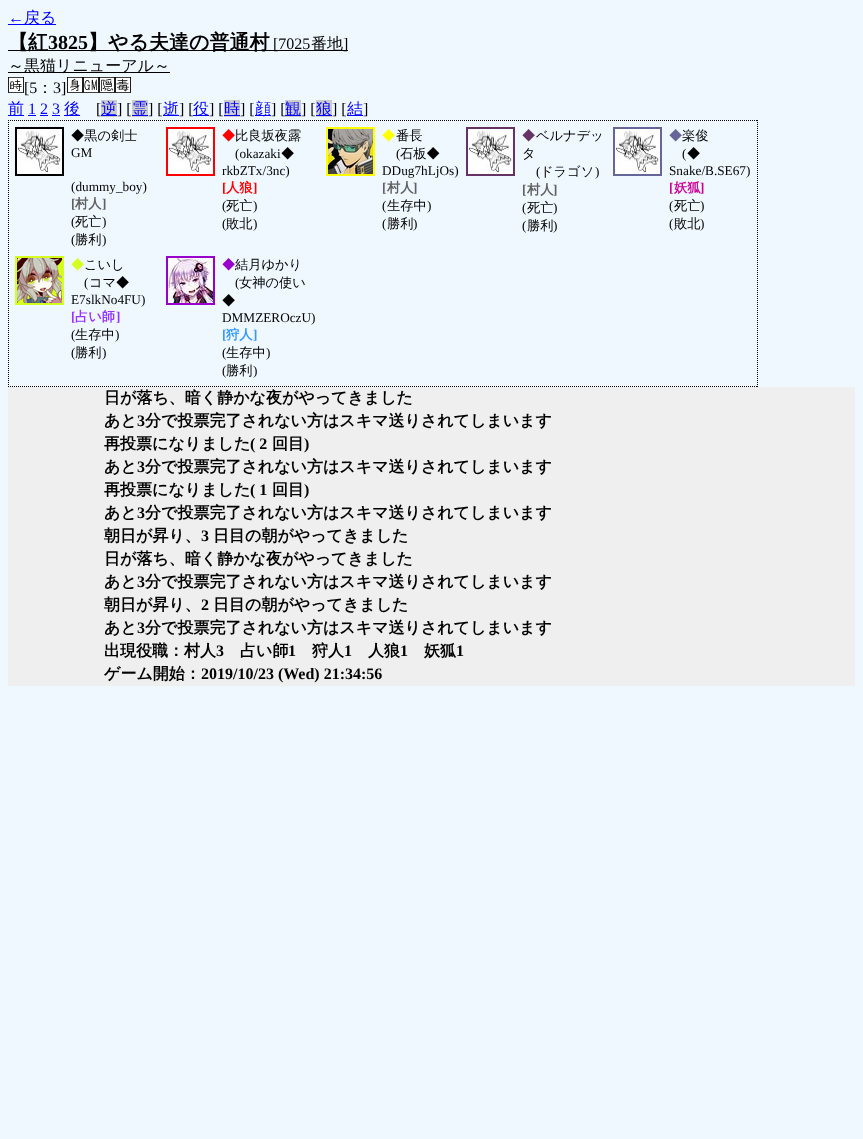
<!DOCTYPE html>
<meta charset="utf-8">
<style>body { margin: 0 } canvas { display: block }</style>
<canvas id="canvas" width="863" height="1139"></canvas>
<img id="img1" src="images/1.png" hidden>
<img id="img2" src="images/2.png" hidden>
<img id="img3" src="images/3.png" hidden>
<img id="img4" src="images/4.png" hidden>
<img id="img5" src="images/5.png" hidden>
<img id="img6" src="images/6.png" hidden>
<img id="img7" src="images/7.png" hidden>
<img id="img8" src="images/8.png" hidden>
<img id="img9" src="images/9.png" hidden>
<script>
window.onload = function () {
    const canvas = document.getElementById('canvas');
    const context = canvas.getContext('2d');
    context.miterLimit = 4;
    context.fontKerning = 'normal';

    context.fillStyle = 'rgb(240, 248, 255)';
    context.fillRect(0, 0, 863, 1139);
    context.fillStyle = 'rgb(0, 0, 255)';
    context.fillRect(8, 24, 48, 1);
    context.fillStyle = 'rgb(0, 0, 0)';
    context.fillRect(8, 50, 340, 1);
    context.fillRect(8, 72, 162, 1);
    context.drawImage(document.getElementById('img1'), 8, 77, 16, 16);
    context.drawImage(document.getElementById('img2'), 67, 77, 16, 16);
    context.drawImage(document.getElementById('img3'), 83, 77, 16, 16);
    context.drawImage(document.getElementById('img4'), 99, 77, 16, 16);
    context.drawImage(document.getElementById('img5'), 115, 77, 16, 16);
    context.fillStyle = 'rgb(0, 0, 255)';
    context.fillRect(8, 115, 16, 1);
    context.fillRect(28, 115, 8, 1);
    context.fillRect(64, 115, 16, 1);
    context.fillStyle = 'rgb(204, 204, 204)';
    context.fillRect(101, 100, 16, 17);
    context.fillStyle = 'rgb(0, 0, 255)';
    context.fillRect(101, 115, 16, 1);
    context.fillStyle = 'rgb(204, 204, 204)';
    context.fillRect(132, 100, 16, 17);
    context.fillStyle = 'rgb(0, 0, 255)';
    context.fillRect(132, 115, 16, 1);
    context.fillRect(163, 115, 16, 1);
    context.fillRect(193, 115, 16, 1);
    context.fillStyle = 'rgb(204, 204, 204)';
    context.fillRect(224, 100, 16, 17);
    context.fillStyle = 'rgb(0, 0, 255)';
    context.fillRect(224, 115, 16, 1);
    context.fillRect(255, 115, 16, 1);
    context.fillStyle = 'rgb(204, 204, 204)';
    context.fillRect(285, 100, 16, 17);
    context.fillStyle = 'rgb(0, 0, 255)';
    context.fillRect(285, 115, 16, 1);
    context.fillStyle = 'rgb(204, 204, 204)';
    context.fillRect(316, 100, 16, 17);
    context.fillStyle = 'rgb(0, 0, 255)';
    context.fillRect(316, 115, 16, 1);
    context.fillRect(347, 115, 16, 1);
    context.fillRect(40, 115, 8, 1);
    context.fillRect(52, 115, 8, 1);
    context.beginPath();
    context.moveTo(8, 120.5);
    context.lineTo(758, 120.5);
    context.strokeStyle = 'rgb(0, 0, 0)';
    context.setLineDash([1, 1]);
    context.stroke();
    context.beginPath();
    context.moveTo(757.5, 120);
    context.lineTo(757.5, 387);
    context.stroke();
    context.beginPath();
    context.moveTo(8, 386.5);
    context.lineTo(758, 386.5);
    context.stroke();
    context.beginPath();
    context.moveTo(8.5, 120);
    context.lineTo(8.5, 387);
    context.stroke();
    context.lineWidth = 2;
    context.setLineDash([]);
    context.strokeRect(16, 128, 47, 47);
    context.drawImage(document.getElementById('img6'), 17, 129, 45, 45);
    context.strokeStyle = 'rgb(255, 0, 0)';
    context.strokeRect(167, 128, 47, 47);
    context.drawImage(document.getElementById('img6'), 168, 129, 45, 45);
    context.strokeStyle = 'rgb(255, 255, 0)';
    context.strokeRect(327, 128, 47, 47);
    context.drawImage(document.getElementById('img7'), 328, 129, 45, 45);
    context.strokeStyle = 'rgb(102, 51, 102)';
    context.strokeRect(467, 128, 47, 47);
    context.drawImage(document.getElementById('img6'), 468, 129, 45, 45);
    context.strokeStyle = 'rgb(102, 102, 153)';
    context.strokeRect(614, 128, 47, 47);
    context.drawImage(document.getElementById('img6'), 615, 129, 45, 45);
    context.strokeStyle = 'rgb(212, 255, 31)';
    context.strokeRect(16, 257, 47, 47);
    context.drawImage(document.getElementById('img8'), 17, 258, 45, 45);
    context.strokeStyle = 'rgb(153, 0, 204)';
    context.strokeRect(167, 257, 47, 47);
    context.drawImage(document.getElementById('img9'), 168, 258, 45, 45);
    context.fillStyle = 'rgb(239, 239, 239)';
    context.fillRect(8, 387, 847, 299);
    context.font = '16px Liberation Serif';
    context.fillStyle = 'rgb(0, 0, 255)';
    context.fillText('←', 8, 23);
    context.font = '500 16px WenQuanYi Zen Hei';
    context.fillText('戻る', 24, 23);
    context.font = 'bold 20px WenQuanYi Zen Hei';
    context.fillStyle = 'rgb(0, 0, 0)';
    context.fillText('【紅', 8, 49);
    context.font = 'bold 20px Liberation Serif';
    context.fillText('3825', 48, 49);
    context.font = 'bold 20px WenQuanYi Zen Hei';
    context.fillText('】やる夫達の普通村', 88, 49);
    context.font = '16px Liberation Serif';
    context.fillText('[7025', 273, 49);
    context.font = '500 16px WenQuanYi Zen Hei';
    context.fillText('番地', 311, 49);
    context.font = '16px Liberation Serif';
    context.fillText(']', 343, 49);
    context.font = '500 16px WenQuanYi Zen Hei';
    context.fillText('～黒猫リニューアル～', 8, 71);
    context.font = '16px Liberation Serif';
    context.fillText('[5', 24, 93);
    context.font = '500 16px WenQuanYi Zen Hei';
    context.fillText('：', 37, 93);
    context.font = '16px Liberation Serif';
    context.fillText('3]', 53, 93);
    context.font = '500 16px WenQuanYi Zen Hei';
    context.fillStyle = 'rgb(0, 0, 255)';
    context.fillText('前', 8, 114);
    context.font = '16px Liberation Serif';
    context.fillText('1 2 3', 28, 114);
    context.font = '500 16px WenQuanYi Zen Hei';
    context.fillText('後', 64, 114);
    context.font = '16px Liberation Serif';
    context.fillStyle = 'rgb(0, 0, 0)';
    context.fillText('[', 96, 114);
    context.font = '500 16px WenQuanYi Zen Hei';
    context.fillStyle = 'rgb(0, 0, 255)';
    context.fillText('逆', 101, 114);
    context.font = '16px Liberation Serif';
    context.fillStyle = 'rgb(0, 0, 0)';
    context.fillText('] [', 117, 114);
    context.font = '500 16px WenQuanYi Zen Hei';
    context.fillStyle = 'rgb(0, 0, 255)';
    context.fillText('霊', 132, 114);
    context.font = '16px Liberation Serif';
    context.fillStyle = 'rgb(0, 0, 0)';
    context.fillText('] [', 148, 114);
    context.font = '500 16px WenQuanYi Zen Hei';
    context.fillStyle = 'rgb(0, 0, 255)';
    context.fillText('逝', 163, 114);
    context.font = '16px Liberation Serif';
    context.fillStyle = 'rgb(0, 0, 0)';
    context.fillText('] [', 179, 114);
    context.font = '500 16px WenQuanYi Zen Hei';
    context.fillStyle = 'rgb(0, 0, 255)';
    context.fillText('役', 193, 114);
    context.font = '16px Liberation Serif';
    context.fillStyle = 'rgb(0, 0, 0)';
    context.fillText('] [', 209, 114);
    context.font = '500 16px WenQuanYi Zen Hei';
    context.fillStyle = 'rgb(0, 0, 255)';
    context.fillText('時', 224, 114);
    context.font = '16px Liberation Serif';
    context.fillStyle = 'rgb(0, 0, 0)';
    context.fillText('] [', 240, 114);
    context.font = '500 16px WenQuanYi Zen Hei';
    context.fillStyle = 'rgb(0, 0, 255)';
    context.fillText('顔', 255, 114);
    context.font = '16px Liberation Serif';
    context.fillStyle = 'rgb(0, 0, 0)';
    context.fillText('] [', 271, 114);
    context.font = '500 16px WenQuanYi Zen Hei';
    context.fillStyle = 'rgb(0, 0, 255)';
    context.fillText('観', 285, 114);
    context.font = '16px Liberation Serif';
    context.fillStyle = 'rgb(0, 0, 0)';
    context.fillText('] [', 301, 114);
    context.font = '500 16px WenQuanYi Zen Hei';
    context.fillStyle = 'rgb(0, 0, 255)';
    context.fillText('狼', 316, 114);
    context.font = '16px Liberation Serif';
    context.fillStyle = 'rgb(0, 0, 0)';
    context.fillText('] [', 332, 114);
    context.font = '500 16px WenQuanYi Zen Hei';
    context.fillStyle = 'rgb(0, 0, 255)';
    context.fillText('結', 347, 114);
    context.font = '16px Liberation Serif';
    context.fillStyle = 'rgb(0, 0, 0)';
    context.fillText(']', 363, 114);
    context.font = '500 13.25px WenQuanYi Zen Hei';
    context.fillText('◆黒の剣士', 71, 140);
    context.font = '13.25px Liberation Serif';
    context.fillText('GM', 71, 157);
    context.fillText('(dummy_boy)', 71, 191);
    context.font = 'bold 13.25px Liberation Serif';
    context.fillStyle = 'rgb(96, 96, 96)';
    context.fillText('[', 71, 208);
    context.font = 'bold 13.25px WenQuanYi Zen Hei';
    context.fillText('村人', 75, 208);
    context.font = 'bold 13.25px Liberation Serif';
    context.fillText(']', 102, 208);
    context.font = '13.25px Liberation Serif';
    context.fillStyle = 'rgb(0, 0, 0)';
    context.fillText('(', 71, 226);
    context.font = '500 13.25px WenQuanYi Zen Hei';
    context.fillText('死亡', 75, 226);
    context.font = '13.25px Liberation Serif';
    context.fillText(')', 102, 226);
    context.fillText('(', 71, 244);
    context.font = '500 13.25px WenQuanYi Zen Hei';
    context.fillText('勝利', 75, 244);
    context.font = '13.25px Liberation Serif';
    context.fillText(')', 102, 244);
    context.font = '500 13.25px WenQuanYi Zen Hei';
    context.fillStyle = 'rgb(255, 0, 0)';
    context.fillText('◆', 222, 140);
    context.fillStyle = 'rgb(0, 0, 0)';
    context.fillText('比良坂夜露', 235, 140);
    context.font = '13.25px Liberation Serif';
    context.fillText('(okazaki', 235, 158);
    context.font = '500 13.25px WenQuanYi Zen Hei';
    context.fillText('◆', 281, 158);
    context.font = '13.25px Liberation Serif';
    context.fillText('rkbZTx/3nc)', 222, 175);
    context.font = 'bold 13.25px Liberation Serif';
    context.fillStyle = 'rgb(255, 0, 0)';
    context.fillText('[', 222, 192);
    context.font = 'bold 13.25px WenQuanYi Zen Hei';
    context.fillText('人狼', 226, 192);
    context.font = 'bold 13.25px Liberation Serif';
    context.fillText(']', 253, 192);
    context.font = '13.25px Liberation Serif';
    context.fillStyle = 'rgb(0, 0, 0)';
    context.fillText('(', 222, 210);
    context.font = '500 13.25px WenQuanYi Zen Hei';
    context.fillText('死亡', 226, 210);
    context.font = '13.25px Liberation Serif';
    context.fillText(')', 253, 210);
    context.fillText('(', 222, 228);
    context.font = '500 13.25px WenQuanYi Zen Hei';
    context.fillText('敗北', 226, 228);
    context.font = '13.25px Liberation Serif';
    context.fillText(')', 253, 228);
    context.font = '500 13.25px WenQuanYi Zen Hei';
    context.fillStyle = 'rgb(255, 255, 0)';
    context.fillText('◆', 382, 140);
    context.fillStyle = 'rgb(0, 0, 0)';
    context.fillText('番長', 396, 140);
    context.font = '13.25px Liberation Serif';
    context.fillText('(', 396, 158);
    context.font = '500 13.25px WenQuanYi Zen Hei';
    context.fillText('石板◆', 400, 158);
    context.font = '13.25px Liberation Serif';
    context.fillText('DDug7hLjOs)', 382, 175);
    context.font = 'bold 13.25px Liberation Serif';
    context.fillStyle = 'rgb(96, 96, 96)';
    context.fillText('[', 382, 192);
    context.font = 'bold 13.25px WenQuanYi Zen Hei';
    context.fillText('村人', 387, 192);
    context.font = 'bold 13.25px Liberation Serif';
    context.fillText(']', 413, 192);
    context.font = '13.25px Liberation Serif';
    context.fillStyle = 'rgb(0, 0, 0)';
    context.fillText('(', 382, 210);
    context.font = '500 13.25px WenQuanYi Zen Hei';
    context.fillText('生存中', 387, 210);
    context.font = '13.25px Liberation Serif';
    context.fillText(')', 427, 210);
    context.fillText('(', 382, 228);
    context.font = '500 13.25px WenQuanYi Zen Hei';
    context.fillText('勝利', 387, 228);
    context.font = '13.25px Liberation Serif';
    context.fillText(')', 413, 228);
    context.font = '500 13.25px WenQuanYi Zen Hei';
    context.fillStyle = 'rgb(102, 51, 102)';
    context.fillText('◆', 522, 140);
    context.fillStyle = 'rgb(0, 0, 0)';
    context.fillText('ベルナデッ', 536, 140);
    context.fillText('タ', 522, 158);
    context.font = '13.25px Liberation Serif';
    context.fillText('(', 536, 176);
    context.font = '500 13.25px WenQuanYi Zen Hei';
    context.fillText('ドラゴソ', 540, 176);
    context.font = '13.25px Liberation Serif';
    context.fillText(')', 595, 176);
    context.font = 'bold 13.25px Liberation Serif';
    context.fillStyle = 'rgb(96, 96, 96)';
    context.fillText('[', 522, 194);
    context.font = 'bold 13.25px WenQuanYi Zen Hei';
    context.fillText('村人', 527, 194);
    context.font = 'bold 13.25px Liberation Serif';
    context.fillText(']', 553, 194);
    context.font = '13.25px Liberation Serif';
    context.fillStyle = 'rgb(0, 0, 0)';
    context.fillText('(', 522, 212);
    context.font = '500 13.25px WenQuanYi Zen Hei';
    context.fillText('死亡', 527, 212);
    context.font = '13.25px Liberation Serif';
    context.fillText(')', 553, 212);
    context.fillText('(', 522, 230);
    context.font = '500 13.25px WenQuanYi Zen Hei';
    context.fillText('勝利', 527, 230);
    context.font = '13.25px Liberation Serif';
    context.fillText(')', 553, 230);
    context.font = '500 13.25px WenQuanYi Zen Hei';
    context.fillStyle = 'rgb(102, 102, 153)';
    context.fillText('◆', 669, 140);
    context.fillStyle = 'rgb(0, 0, 0)';
    context.fillText('楽俊', 682, 140);
    context.font = '13.25px Liberation Serif';
    context.fillText('(', 682, 158);
    context.font = '500 13.25px WenQuanYi Zen Hei';
    context.fillText('◆', 687, 158);
    context.font = '13.25px Liberation Serif';
    context.fillText('Snake/B.SE67)', 669, 175);
    context.font = 'bold 13.25px Liberation Serif';
    context.fillStyle = 'rgb(204, 0, 153)';
    context.fillText('[', 669, 192);
    context.font = 'bold 13.25px WenQuanYi Zen Hei';
    context.fillText('妖狐', 674, 192);
    context.font = 'bold 13.25px Liberation Serif';
    context.fillText(']', 700, 192);
    context.font = '13.25px Liberation Serif';
    context.fillStyle = 'rgb(0, 0, 0)';
    context.fillText('(', 669, 210);
    context.font = '500 13.25px WenQuanYi Zen Hei';
    context.fillText('死亡', 674, 210);
    context.font = '13.25px Liberation Serif';
    context.fillText(')', 700, 210);
    context.fillText('(', 669, 228);
    context.font = '500 13.25px WenQuanYi Zen Hei';
    context.fillText('敗北', 674, 228);
    context.font = '13.25px Liberation Serif';
    context.fillText(')', 700, 228);
    context.font = '500 13.25px WenQuanYi Zen Hei';
    context.fillStyle = 'rgb(212, 255, 31)';
    context.fillText('◆', 71, 269);
    context.fillStyle = 'rgb(0, 0, 0)';
    context.fillText('こいし', 84, 269);
    context.font = '13.25px Liberation Serif';
    context.fillText('(', 84, 287);
    context.font = '500 13.25px WenQuanYi Zen Hei';
    context.fillText('コマ◆', 89, 287);
    context.font = '13.25px Liberation Serif';
    context.fillText('E7slkNo4FU)', 71, 304);
    context.font = 'bold 13.25px Liberation Serif';
    context.fillStyle = 'rgb(153, 51, 255)';
    context.fillText('[', 71, 321);
    context.font = 'bold 13.25px WenQuanYi Zen Hei';
    context.fillText('占い師', 75, 321);
    context.font = 'bold 13.25px Liberation Serif';
    context.fillText(']', 116, 321);
    context.font = '13.25px Liberation Serif';
    context.fillStyle = 'rgb(0, 0, 0)';
    context.fillText('(', 71, 339);
    context.font = '500 13.25px WenQuanYi Zen Hei';
    context.fillText('生存中', 75, 339);
    context.font = '13.25px Liberation Serif';
    context.fillText(')', 115, 339);
    context.fillText('(', 71, 357);
    context.font = '500 13.25px WenQuanYi Zen Hei';
    context.fillText('勝利', 75, 357);
    context.font = '13.25px Liberation Serif';
    context.fillText(')', 102, 357);
    context.font = '500 13.25px WenQuanYi Zen Hei';
    context.fillStyle = 'rgb(153, 0, 204)';
    context.fillText('◆', 222, 269);
    context.fillStyle = 'rgb(0, 0, 0)';
    context.fillText('結月ゆかり', 235, 269);
    context.font = '13.25px Liberation Serif';
    context.fillText('(', 235, 287);
    context.font = '500 13.25px WenQuanYi Zen Hei';
    context.fillText('女神の使い', 239, 287);
    context.fillText('◆', 222, 305);
    context.font = '13.25px Liberation Serif';
    context.fillText('DMMZEROczU)', 222, 322);
    context.font = 'bold 13.25px Liberation Serif';
    context.fillStyle = 'rgb(51, 153, 255)';
    context.fillText('[', 222, 339);
    context.font = 'bold 13.25px WenQuanYi Zen Hei';
    context.fillText('狩人', 226, 339);
    context.font = 'bold 13.25px Liberation Serif';
    context.fillText(']', 253, 339);
    context.font = '13.25px Liberation Serif';
    context.fillStyle = 'rgb(0, 0, 0)';
    context.fillText('(', 222, 357);
    context.font = '500 13.25px WenQuanYi Zen Hei';
    context.fillText('生存中', 226, 357);
    context.font = '13.25px Liberation Serif';
    context.fillText(')', 266, 357);
    context.fillText('(', 222, 375);
    context.font = '500 13.25px WenQuanYi Zen Hei';
    context.fillText('勝利', 226, 375);
    context.font = '13.25px Liberation Serif';
    context.fillText(')', 253, 375);
    context.font = 'bold 16px WenQuanYi Zen Hei';
    context.fillText('日が落ち、暗く静かな夜がやってきました', 104, 403);
    context.fillText('あと', 104, 426);
    context.font = 'bold 16px Liberation Serif';
    context.fillText('3', 137, 426);
    context.font = 'bold 16px WenQuanYi Zen Hei';
    context.fillText('分で投票完了されない方はスキマ送りされてしまいます', 145, 426);
    context.fillText('再投票になりました', 104, 449);
    context.font = 'bold 16px Liberation Serif';
    context.fillText('( 2', 250, 449);
    context.font = 'bold 16px WenQuanYi Zen Hei';
    context.fillText('回目', 272, 449);
    context.font = 'bold 16px Liberation Serif';
    context.fillText(')', 304, 449);
    context.font = 'bold 16px WenQuanYi Zen Hei';
    context.fillText('あと', 104, 472);
    context.font = 'bold 16px Liberation Serif';
    context.fillText('3', 137, 472);
    context.font = 'bold 16px WenQuanYi Zen Hei';
    context.fillText('分で投票完了されない方はスキマ送りされてしまいます', 145, 472);
    context.fillText('再投票になりました', 104, 495);
    context.font = 'bold 16px Liberation Serif';
    context.fillText('( 1', 250, 495);
    context.font = 'bold 16px WenQuanYi Zen Hei';
    context.fillText('回目', 272, 495);
    context.font = 'bold 16px Liberation Serif';
    context.fillText(')', 304, 495);
    context.font = 'bold 16px WenQuanYi Zen Hei';
    context.fillText('あと', 104, 518);
    context.font = 'bold 16px Liberation Serif';
    context.fillText('3', 137, 518);
    context.font = 'bold 16px WenQuanYi Zen Hei';
    context.fillText('分で投票完了されない方はスキマ送りされてしまいます', 145, 518);
    context.fillText('朝日が昇り、', 104, 541);
    context.font = 'bold 16px Liberation Serif';
    context.fillText('3', 201, 541);
    context.font = 'bold 16px WenQuanYi Zen Hei';
    context.fillText('日目の朝がやってきました', 213, 541);
    context.fillText('日が落ち、暗く静かな夜がやってきました', 104, 564);
    context.fillText('あと', 104, 587);
    context.font = 'bold 16px Liberation Serif';
    context.fillText('3', 137, 587);
    context.font = 'bold 16px WenQuanYi Zen Hei';
    context.fillText('分で投票完了されない方はスキマ送りされてしまいます', 145, 587);
    context.fillText('朝日が昇り、', 104, 610);
    context.font = 'bold 16px Liberation Serif';
    context.fillText('2', 201, 610);
    context.font = 'bold 16px WenQuanYi Zen Hei';
    context.fillText('日目の朝がやってきました', 213, 610);
    context.fillText('あと', 104, 633);
    context.font = 'bold 16px Liberation Serif';
    context.fillText('3', 137, 633);
    context.font = 'bold 16px WenQuanYi Zen Hei';
    context.fillText('分で投票完了されない方はスキマ送りされてしまいます', 145, 633);
    context.fillText('出現役職：村人', 104, 656);
    context.font = 'bold 16px Liberation Serif';
    context.fillText('3', 216, 656);
    context.font = 'bold 16px WenQuanYi Zen Hei';
    context.fillText('占い師', 240, 656);
    context.font = 'bold 16px Liberation Serif';
    context.fillText('1', 288, 656);
    context.font = 'bold 16px WenQuanYi Zen Hei';
    context.fillText('狩人', 312, 656);
    context.font = 'bold 16px Liberation Serif';
    context.fillText('1', 344, 656);
    context.font = 'bold 16px WenQuanYi Zen Hei';
    context.fillText('人狼', 368, 656);
    context.font = 'bold 16px Liberation Serif';
    context.fillText('1', 400, 656);
    context.font = 'bold 16px WenQuanYi Zen Hei';
    context.fillText('妖狐', 424, 656);
    context.font = 'bold 16px Liberation Serif';
    context.fillText('1', 456, 656);
    context.font = 'bold 16px WenQuanYi Zen Hei';
    context.fillText('ゲーム開始：', 104, 679);
    context.font = 'bold 16px Liberation Serif';
    context.fillText('2019/10/23 (Wed) 21:34:56', 201, 679);
};
</script>
